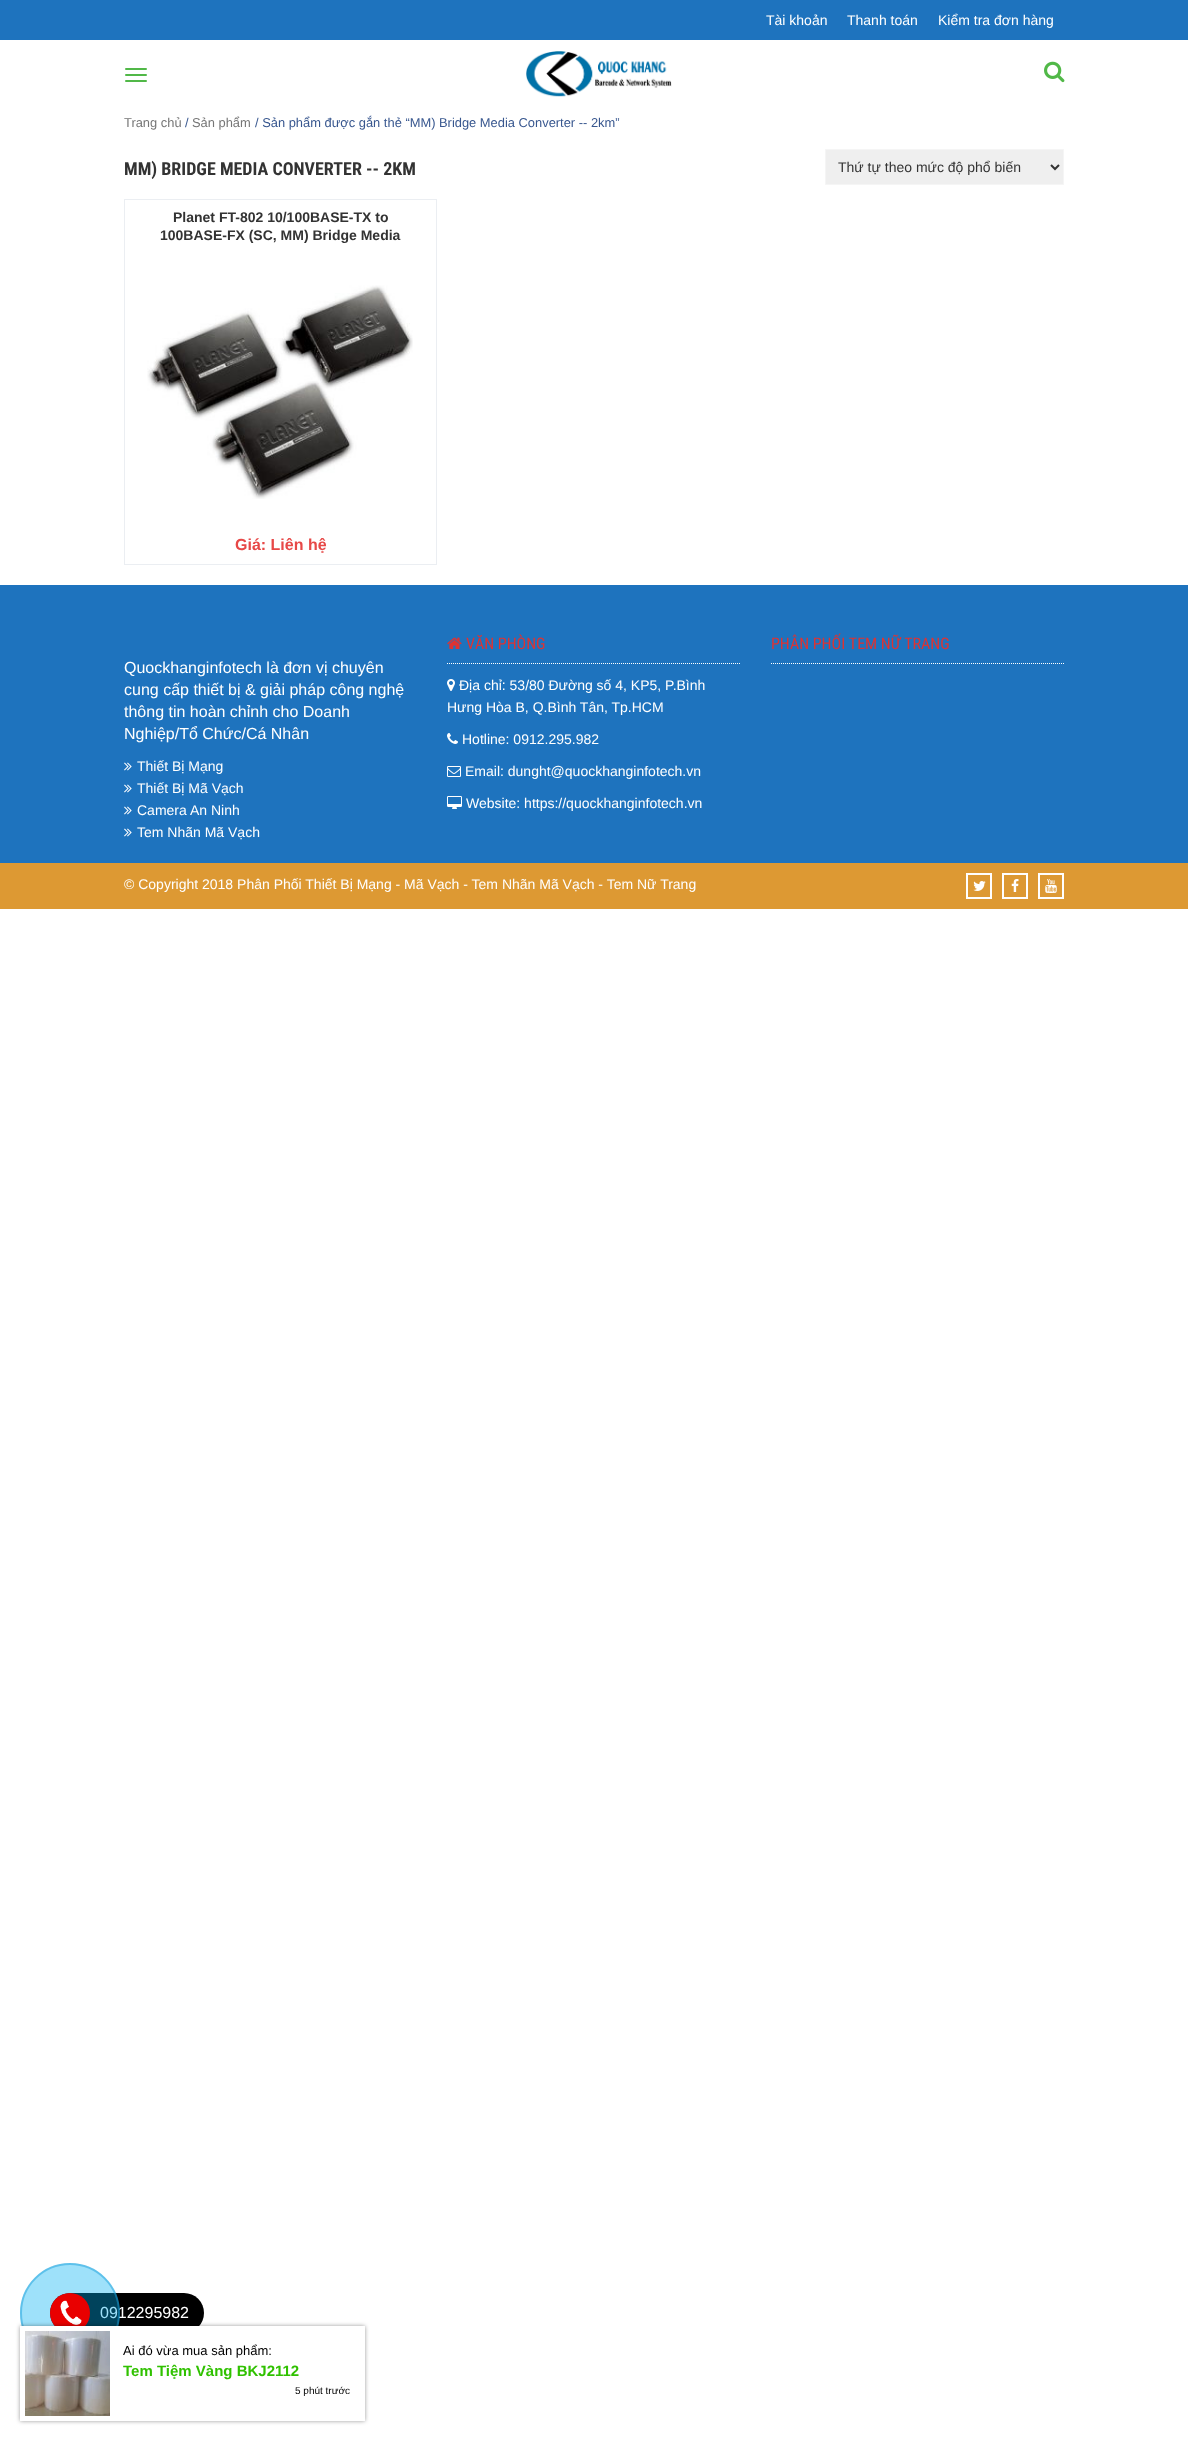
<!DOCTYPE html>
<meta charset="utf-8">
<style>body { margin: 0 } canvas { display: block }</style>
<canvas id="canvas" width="1188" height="2441"></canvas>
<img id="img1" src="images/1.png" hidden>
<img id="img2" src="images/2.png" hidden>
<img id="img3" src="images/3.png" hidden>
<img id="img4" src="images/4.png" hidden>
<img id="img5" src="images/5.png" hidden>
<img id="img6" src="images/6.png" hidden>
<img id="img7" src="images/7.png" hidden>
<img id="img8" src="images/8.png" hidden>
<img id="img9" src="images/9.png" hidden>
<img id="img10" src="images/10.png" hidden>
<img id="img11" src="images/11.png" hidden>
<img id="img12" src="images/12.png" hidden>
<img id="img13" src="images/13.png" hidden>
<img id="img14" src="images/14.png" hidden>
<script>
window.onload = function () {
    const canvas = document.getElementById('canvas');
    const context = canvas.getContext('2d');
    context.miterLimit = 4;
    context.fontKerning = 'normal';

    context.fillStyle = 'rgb(255, 255, 255)';
    context.fillRect(0, 0, 1188, 2441);
    context.fillStyle = 'rgb(30, 115, 190)';
    context.fillRect(0, 0, 1188, 40);
    context.fillStyle = 'rgb(81, 184, 72)';
    context.beginPath();
    context.roundRect(125, 68, 22, 2, 1);
    context.fill();
    context.beginPath();
    context.roundRect(125, 74, 22, 2, 1);
    context.fill();
    context.beginPath();
    context.roundRect(125, 80, 22, 2, 1);
    context.fill();
    context.drawImage(document.getElementById('img1'), 526, 51, 146, 46);
    context.drawImage(document.getElementById('img2'), 1044, 61, 21, 22);
    context.fillStyle = 'rgb(239, 239, 239)';
    context.beginPath();
    context.rect(825.5, 149.5, 238, 35);
    context.fill();
    context.strokeStyle = 'rgb(245, 245, 245)';
    context.stroke();
    context.beginPath();
    context.moveTo(1051, 165);
    context.lineTo(1055, 169);
    context.lineTo(1059, 165);
    context.strokeStyle = 'rgb(51, 51, 51)';
    context.lineWidth = 2;
    context.stroke();
    context.strokeStyle = 'rgb(235, 238, 242)';
    context.lineWidth = 1;
    context.strokeRect(124.5, 199.5, 312, 365);
    context.drawImage(document.getElementById('img3'), 147, 285, 266, 214);
    context.fillStyle = 'rgb(30, 115, 190)';
    context.fillRect(0, 585, 1188, 278);
    context.drawImage(document.getElementById('img4'), 124, 762, 8, 9);
    context.drawImage(document.getElementById('img4'), 124, 784, 8, 9);
    context.drawImage(document.getElementById('img4'), 124, 806, 8, 9);
    context.drawImage(document.getElementById('img4'), 124, 828, 8, 9);
    context.beginPath();
    context.moveTo(447, 663.5);
    context.lineTo(741, 663.5);
    context.strokeStyle = 'rgb(255, 255, 255)';
    context.setLineDash([1, 1]);
    context.stroke();
    context.drawImage(document.getElementById('img5'), 447, 637, 15, 12);
    context.drawImage(document.getElementById('img6'), 447, 679, 8, 12);
    context.drawImage(document.getElementById('img7'), 447, 733, 11, 11);
    context.drawImage(document.getElementById('img8'), 447, 766, 14, 11);
    context.drawImage(document.getElementById('img9'), 447, 796, 15, 13);
    context.beginPath();
    context.moveTo(771, 663.5);
    context.lineTo(1064, 663.5);
    context.stroke();
    context.fillStyle = 'rgb(221, 153, 51)';
    context.fillRect(0, 863, 1188, 46);
    context.lineWidth = 2;
    context.setLineDash([]);
    context.strokeRect(967, 874, 24, 24);
    context.drawImage(document.getElementById('img10'), 973, 881, 13, 10);
    context.strokeRect(1003, 874, 24, 24);
    context.drawImage(document.getElementById('img11'), 1011, 879, 8, 13);
    context.strokeRect(1039, 874, 24, 24);
    context.drawImage(document.getElementById('img12'), 1045, 879, 12, 14);
    context.fillStyle = 'rgb(0, 0, 0)';
    context.beginPath();
    context.roundRect(50, 2293, 154, 40, 20);
    context.fill();
    context.font = '14px Liberation Sans';
    context.fillStyle = 'rgb(255, 255, 255)';
    context.fillText('Tài khoản', 766, 25);
    context.fillText('Thanh toán', 847, 25);
    context.fillText('Kiểm tra đơn hàng', 938, 25);
    context.font = '12.9px Liberation Sans';
    context.fillStyle = 'rgb(118, 118, 118)';
    context.fillText('Trang chủ', 124, 127);
    context.fillStyle = 'rgb(56, 87, 143)';
    context.fillText('/', 185, 127);
    context.fillStyle = 'rgb(118, 118, 118)';
    context.fillText('Sản phẩm', 192, 127);
    context.fillStyle = 'rgb(56, 87, 143)';
    context.fillText('/ Sản phẩm được gắn thẻ “MM) Bridge Media Converter -- 2km”', 255, 127);
    context.font = 'bold 18px Roboto Condensed';
    context.fillStyle = 'rgb(51, 51, 51)';
    context.fillText('MM) BRIDGE MEDIA CONVERTER -- 2KM', 124, 175);
    context.font = '14px Liberation Sans';
    context.fillText('Thứ tự theo mức độ phổ biến', 838, 172);
    context.font = 'bold 14px Liberation Sans';
    context.fillText('Planet FT-802 10/100BASE-TX to', 173, 222);
    context.fillText('100BASE-FX (SC, MM) Bridge Media', 160, 240);
    context.font = 'bold 16px Liberation Sans';
    context.fillStyle = 'rgb(231, 72, 71)';
    context.fillText('Giá: Liên hệ', 235, 550);
    context.font = '16px Liberation Sans';
    context.fillStyle = 'rgb(255, 255, 255)';
    context.fillText('Quockhanginfotech là đơn vị chuyên', 124, 673);
    context.fillText('cung cấp thiết bị & giải pháp công nghệ', 124, 695);
    context.fillText('thông tin hoàn chỉnh cho Doanh', 124, 717);
    context.fillText('Nghiệp/Tổ Chức/Cá Nhân', 124, 739);
    context.font = '14px Liberation Sans';
    context.fillText('Thiết Bị Mạng', 137, 771);
    context.fillText('Thiết Bị Mã Vạch', 137, 793);
    context.fillText('Camera An Ninh', 137, 815);
    context.fillText('Tem Nhãn Mã Vạch', 137, 837);
    context.font = '16px Roboto Condensed';
    context.fillStyle = 'rgb(221, 51, 51)';
    context.fillText('VĂN PHÒNG', 466, 649);
    context.font = '14px Liberation Sans';
    context.fillStyle = 'rgb(255, 255, 255)';
    context.fillText('Địa chỉ: 53/80 Đường số 4, KP5, P.Bình', 459, 690);
    context.fillText('Hưng Hòa B, Q.Bình Tân, Tp.HCM', 447, 712);
    context.fillText('Hotline: 0912.295.982', 462, 744);
    context.fillText('Email: dunght@quockhanginfotech.vn', 465, 776);
    context.fillText('Website: https://quockhanginfotech.vn', 466, 808);
    context.font = '16px Roboto Condensed';
    context.fillStyle = 'rgb(221, 51, 51)';
    context.fillText('PHÂN PHỐI TEM NỮ TRANG', 771, 649);
    context.font = '14px Liberation Sans';
    context.fillStyle = 'rgb(255, 255, 255)';
    context.fillText('© Copyright 2018 Phân Phối Thiết Bị Mạng - Mã Vạch - Tem Nhãn Mã Vạch - Tem Nữ Trang', 124, 889);
    context.font = '16px Liberation Sans';
    context.fillText('0912295982', 100, 2318);
    context.beginPath();
    context.arc(70, 2313, 49, 0, 2 * Math.PI);
    context.strokeStyle = 'rgba(48, 154, 207, 0.5)';
    context.stroke();
    context.fillStyle = 'rgba(0, 175, 242, 0.38)';
    context.beginPath();
    context.arc(70, 2313, 50, 0, 2 * Math.PI);
    context.fill();
    context.fillStyle = 'rgb(233, 0, 0)';
    context.beginPath();
    context.arc(70, 2313, 20, 0, 2 * Math.PI);
    context.fill();
    context.drawImage(document.getElementById('img13'), 60, 2300, 22, 25);
    context.fillStyle = 'rgba(0, 0, 0, 0.4)';
    context.filter = 'blur(2px)';
    context.beginPath();
    context.rect(20, 2326, 345, 95);
    context.fill();
    context.filter = 'none';
    context.fillStyle = 'rgb(255, 255, 255)';
    context.fillRect(20, 2326, 345, 95);
    context.drawImage(document.getElementById('img14'), 25, 2331, 85, 85);
    context.font = '13px Liberation Sans';
    context.fillStyle = 'rgb(0, 0, 0)';
    context.fillText('Ai đó vừa mua sản phẩm:', 123, 2355);
    context.font = 'bold 15px Liberation Sans';
    context.fillStyle = 'rgb(48, 193, 0)';
    context.fillText('Tem Tiệm Vàng BKJ2112', 123, 2376);
    context.font = '10px Liberation Sans';
    context.fillStyle = 'rgb(0, 0, 0)';
    context.fillText('5 phút trước', 295, 2394);
};
</script>
